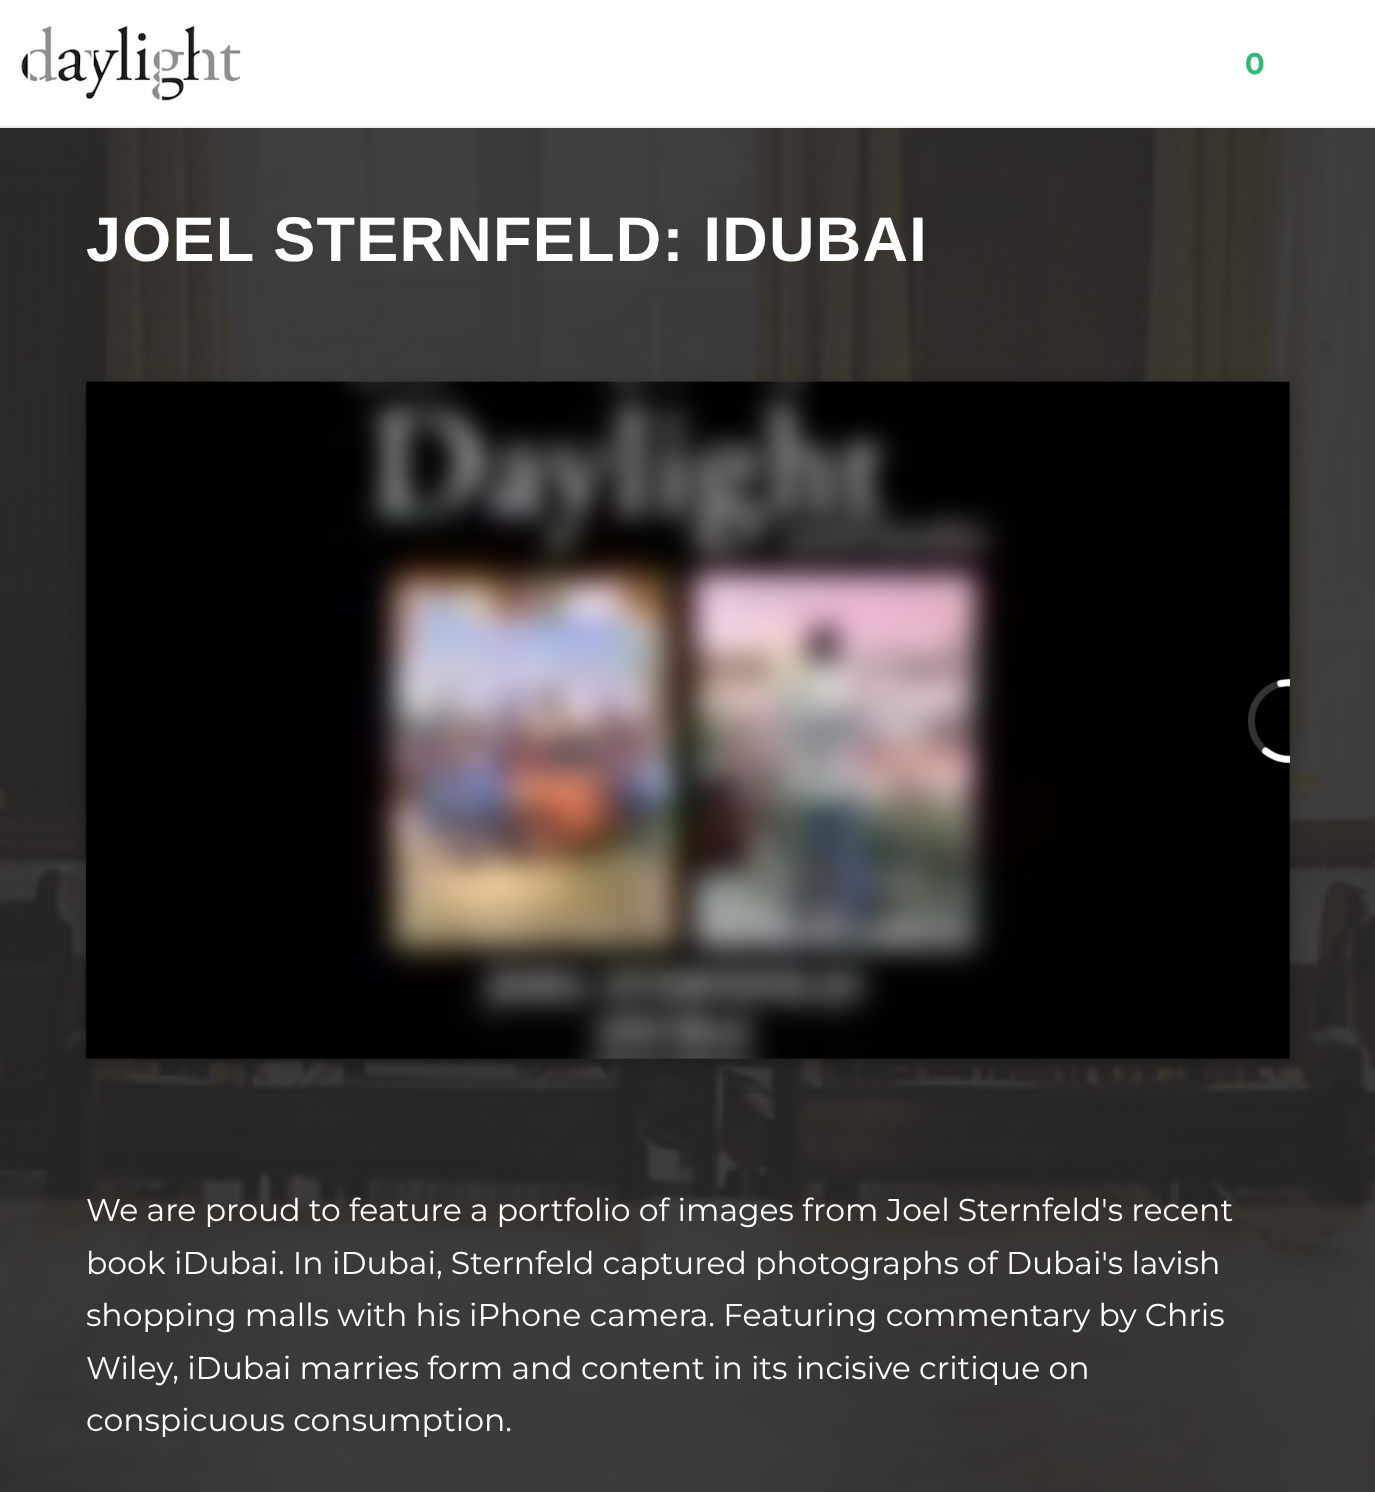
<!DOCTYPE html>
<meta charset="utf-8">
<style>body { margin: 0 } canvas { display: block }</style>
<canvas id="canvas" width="1375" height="1492"></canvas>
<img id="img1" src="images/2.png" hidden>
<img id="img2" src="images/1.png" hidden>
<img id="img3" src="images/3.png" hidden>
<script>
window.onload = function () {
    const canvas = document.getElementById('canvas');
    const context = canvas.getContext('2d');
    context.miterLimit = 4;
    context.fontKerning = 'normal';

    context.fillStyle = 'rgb(255, 255, 255)';
    context.fillRect(0, 0, 1375, 1492);
    context.fillStyle = 'rgb(42, 42, 42)';
    context.fillRect(0, 128, 1375, 1364);
    context.drawImage(document.getElementById('img1'), 0, 127, 1375, 1365);
    context.fillStyle = 'rgba(0, 0, 0, 0.07)';
    context.beginPath();
    context.moveTo(0, 126);
    context.lineTo(0, 128);
    context.lineTo(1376, 128);
    context.lineTo(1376, 2);
    context.lineTo(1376, 126);
    context.closePath();
    context.fill();
    context.drawImage(document.getElementById('img2'), 19, 25, 222, 76);
    context.fillStyle = 'rgba(0, 0, 0, 0.25)';
    context.filter = 'blur(9px)';
    context.beginPath();
    context.rect(86, 387, 1204, 677);
    context.fill();
    context.filter = 'none';
    context.drawImage(document.getElementById('img3'), 85, 381, 1205, 678);
    context.font = 'bold 31.5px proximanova';
    context.fillStyle = 'rgb(52, 184, 118)';
    context.fillText('0', 1245, 74);
    context.letterSpacing = '1.25px';
    context.font = 'bold 63px Liberation Sans';
    context.fillStyle = 'rgb(255, 255, 255)';
    context.fillText('JOEL STERNFELD: IDUBAI', 86, 261);
    context.letterSpacing = '0px';
    context.font = '31.5px Montserrat';
    context.fillText('We are proud to feature a portfolio of images from Joel Sternfeld\'s recent', 86, 1221);
    context.fillText('book iDubai. In iDubai, Sternfeld captured photographs of Dubai\'s lavish', 86, 1274);
    context.fillText('shopping malls with his iPhone camera. Featuring commentary by Chris', 86, 1326);
    context.fillText('Wiley, iDubai marries form and content in its incisive critique on', 86, 1379);
    context.fillText('conspicuous consumption.', 86, 1431);
};
</script>
